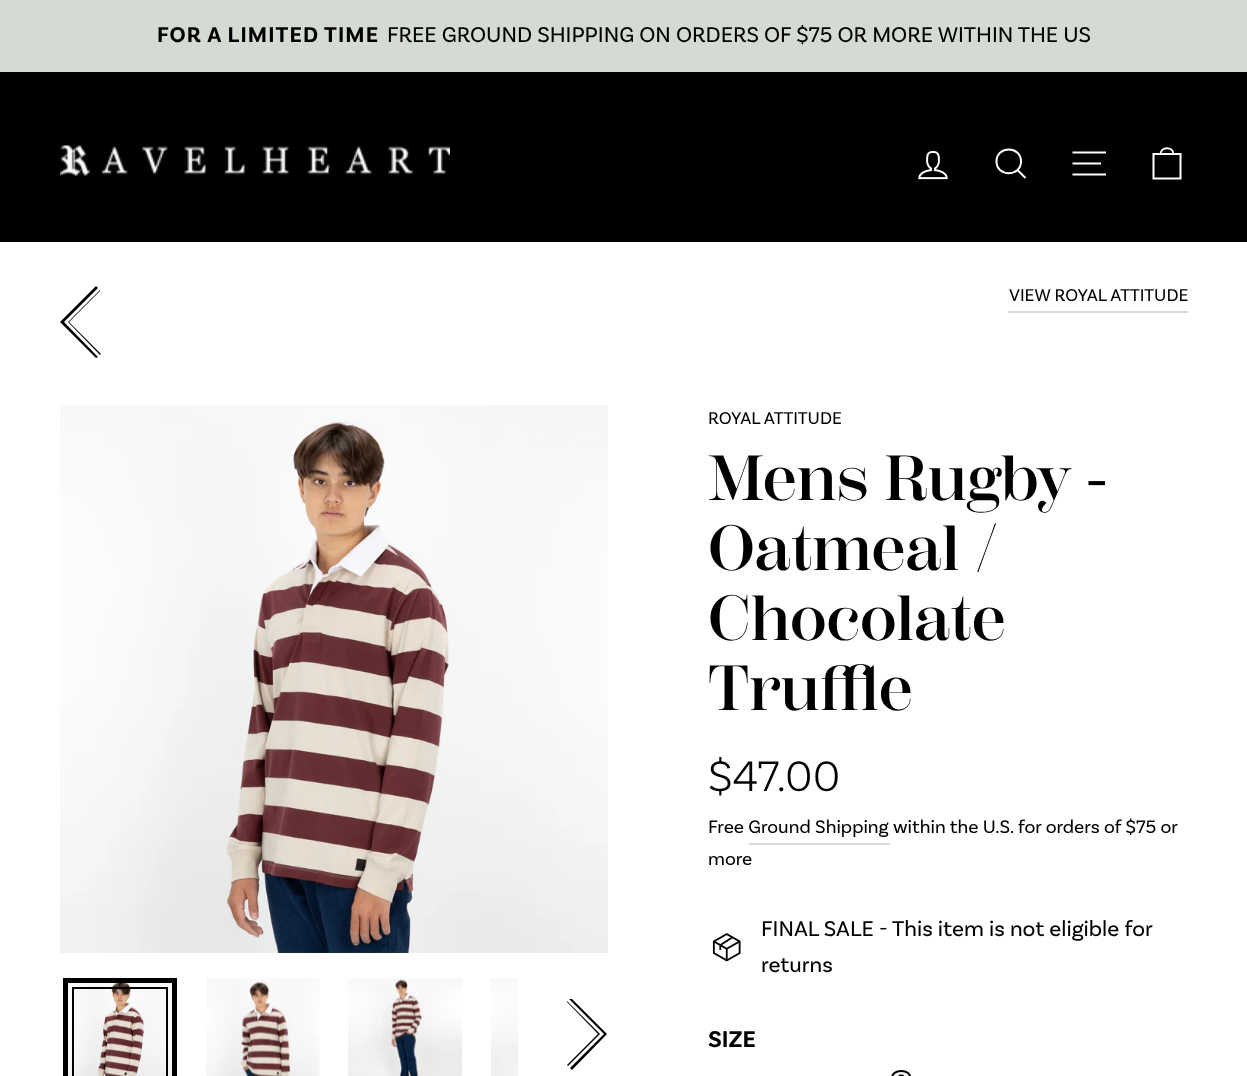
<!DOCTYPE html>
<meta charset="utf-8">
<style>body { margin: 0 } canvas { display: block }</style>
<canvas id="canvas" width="1247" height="1076"></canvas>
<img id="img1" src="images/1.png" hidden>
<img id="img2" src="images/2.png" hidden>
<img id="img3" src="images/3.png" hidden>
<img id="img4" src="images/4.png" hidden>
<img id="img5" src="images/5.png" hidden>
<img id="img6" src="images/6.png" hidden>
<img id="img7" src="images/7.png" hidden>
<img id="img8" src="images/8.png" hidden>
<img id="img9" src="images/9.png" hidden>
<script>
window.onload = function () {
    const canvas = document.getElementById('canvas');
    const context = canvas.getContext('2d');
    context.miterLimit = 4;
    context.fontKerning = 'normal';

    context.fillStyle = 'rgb(255, 255, 255)';
    context.fillRect(0, 0, 1247, 1076);
    context.fillStyle = 'rgb(213, 218, 211)';
    context.fillRect(0, 0, 1247, 72);
    context.fillStyle = 'rgb(0, 0, 0)';
    context.fillRect(0, 72, 1247, 170);
    context.drawImage(document.getElementById('img1'), 60, 145, 390, 31);
    context.drawImage(document.getElementById('img2'), 918, 150, 30, 30);
    context.beginPath();
    context.moveTo(1021, 161.5);
    context.bezierCurveTo(1021, 177, 996.5, 177, 996.5, 161.5);
    context.bezierCurveTo(996.5, 145.5, 1021, 145.5, 1021, 161.5);
    context.closePath();
    context.moveTo(1025.5, 178);
    context.lineTo(1017.5, 170);
    context.strokeStyle = 'rgb(255, 255, 255)';
    context.lineWidth = 2;
    context.stroke();
    context.beginPath();
    context.moveTo(1072.5, 152.5);
    context.lineTo(1106, 152.5);
    context.moveTo(1072.5, 163.5);
    context.lineTo(1101, 163.5);
    context.moveTo(1072.5, 174.5);
    context.lineTo(1106, 174.5);
    context.stroke();
    context.beginPath();
    context.moveTo(1153.5, 154);
    context.lineTo(1180.5, 154);
    context.lineTo(1180.5, 178.5);
    context.lineTo(1153.5, 178.5);
    context.closePath();
    context.moveTo(1160.5, 154.5);
    context.bezierCurveTo(1160.5, 146, 1173.5, 146, 1173.5, 154.5);
    context.stroke();
    context.beginPath();
    context.moveTo(100, 290);
    context.lineTo(68, 322);
    context.lineTo(100, 355);
    context.lineTo(101, 354);
    context.lineTo(69, 322);
    context.lineTo(100, 291);
    context.closePath();
    context.fill();
    context.beginPath();
    context.moveTo(96, 286);
    context.lineTo(60, 322);
    context.lineTo(96, 358);
    context.lineTo(98, 357);
    context.lineTo(64, 322);
    context.lineTo(98, 288);
    context.closePath();
    context.fill();
    context.fillStyle = 'rgb(217, 217, 217)';
    context.fillRect(1008, 311, 180, 2);
    context.drawImage(document.getElementById('img3'), 60, 405, 548, 548);
    context.drawImage(document.getElementById('img4'), 68, 983, 104, 93);
    context.strokeStyle = 'rgb(0, 0, 0)';
    context.lineWidth = 5;
    context.strokeRect(65.5, 980.5, 109, 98);
    context.lineWidth = 2;
    context.strokeRect(73, 988, 94, 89);
    context.drawImage(document.getElementById('img5'), 206, 978, 114, 98);
    context.drawImage(document.getElementById('img6'), 348, 978, 114, 98);
    context.drawImage(document.getElementById('img7'), 491, 978, 27, 98);
    context.fillStyle = 'rgb(0, 0, 0)';
    context.beginPath();
    context.moveTo(568, 1066);
    context.lineTo(600, 1034);
    context.lineTo(567, 1001);
    context.lineTo(567, 1002);
    context.lineTo(598, 1034);
    context.lineTo(567, 1065);
    context.closePath();
    context.fill();
    context.save();
    context.beginPath();
    context.rect(567, 999, 41, 72);
    context.clip();
    context.beginPath();
    context.moveTo(572, 1070);
    context.lineTo(607, 1034);
    context.lineTo(571, 998);
    context.lineTo(569, 999);
    context.lineTo(604, 1034);
    context.lineTo(570, 1068);
    context.closePath();
    context.fill();
    context.restore();
    context.fillStyle = 'rgb(217, 217, 217)';
    context.fillRect(749, 843, 141, 2);
    context.drawImage(document.getElementById('img8'), 712, 933, 29, 29);
    context.drawImage(document.getElementById('img9'), 891, 1070, 20, 6);
    context.letterSpacing = '1.1px';
    context.font = 'bold 22.5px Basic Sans';
    context.fillStyle = 'rgb(0, 0, 0)';
    context.fillText('FOR A LIMITED TIME', 157, 42);
    context.letterSpacing = '0px';
    context.font = '22.5px Basic Sans';
    context.fillText('FREE GROUND SHIPPING ON ORDERS OF $75 OR MORE WITHIN THE US', 387, 42);
    context.font = '18px Basic Sans';
    context.fillText('VIEW ROYAL ATTITUDE', 1009, 301);
    context.fillText('ROYAL ATTITUDE', 708, 424);
    context.font = '600 63.75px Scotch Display';
    context.fillText('Mens Rugby -', 708, 500);
    context.fillText('Oatmeal /', 708, 570);
    context.fillText('Chocolate', 708, 640);
    context.fillText('Truffle', 708, 710);
    context.font = '300 45px Basic Sans';
    context.fillText('$47.00', 708, 791);
    context.font = '19.1px Basic Sans';
    context.fillText('Free Ground Shipping', 708, 833);
    context.fillText('within the U.S. for orders of $75 or', 893, 833);
    context.fillText('more', 708, 865);
    context.font = '22.5px Basic Sans';
    context.fillText('FINAL SALE - This item is not eligible for', 761, 936);
    context.fillText('returns', 761, 972);
    context.font = 'bold 24px Basic Sans';
    context.fillText('SIZE', 708, 1047);
};
</script>
